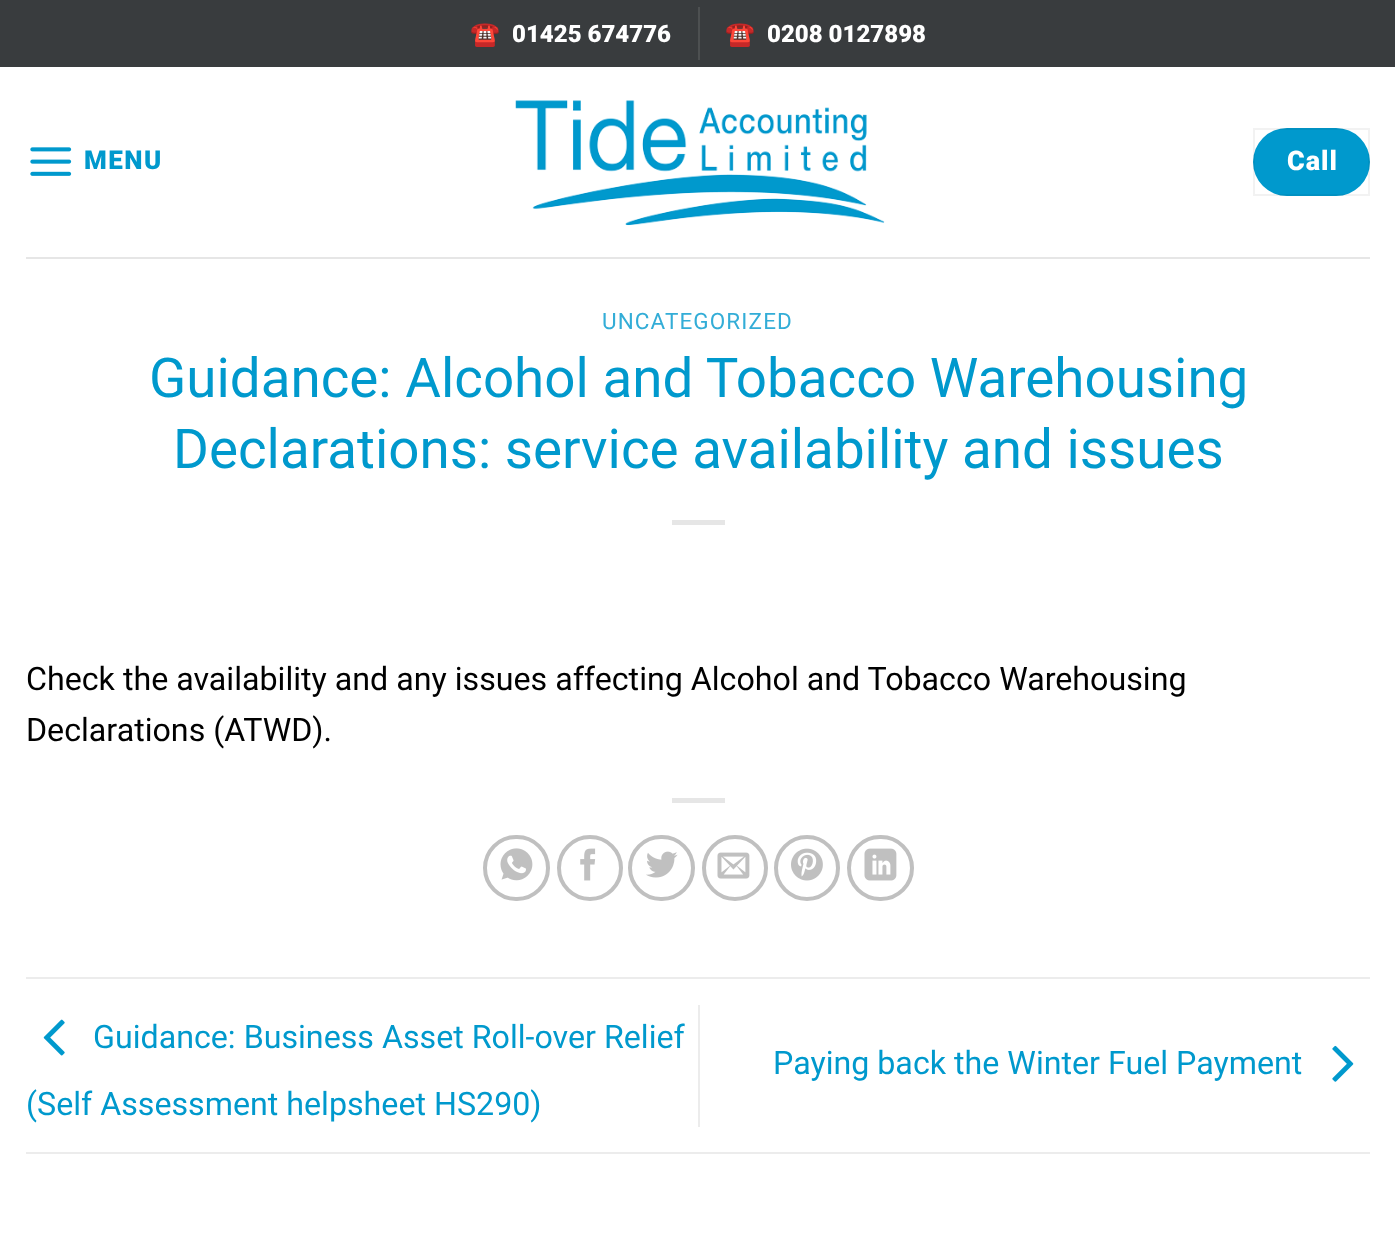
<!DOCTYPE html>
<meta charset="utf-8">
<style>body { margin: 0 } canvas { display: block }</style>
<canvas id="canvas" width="1395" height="1240"></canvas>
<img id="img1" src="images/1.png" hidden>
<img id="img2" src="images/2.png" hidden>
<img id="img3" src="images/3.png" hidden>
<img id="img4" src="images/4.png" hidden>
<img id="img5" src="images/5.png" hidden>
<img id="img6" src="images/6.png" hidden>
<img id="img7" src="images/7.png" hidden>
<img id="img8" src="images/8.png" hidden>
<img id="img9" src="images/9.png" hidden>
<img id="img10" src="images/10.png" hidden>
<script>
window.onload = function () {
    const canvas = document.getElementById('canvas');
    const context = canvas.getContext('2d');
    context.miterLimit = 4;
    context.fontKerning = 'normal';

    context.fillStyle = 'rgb(255, 255, 255)';
    context.fillRect(0, 0, 1395, 1240);
    context.fillStyle = 'rgb(57, 60, 62)';
    context.fillRect(0, 0, 1395, 67);
    context.fillStyle = 'rgb(77, 80, 81)';
    context.fillRect(698, 7, 2, 53);
    context.drawImage(document.getElementById('img1'), 30, 147, 42, 29);
    context.drawImage(document.getElementById('img2'), 515, 100, 370, 126);
    context.fillStyle = 'rgb(0, 153, 205)';
    context.beginPath();
    context.roundRect(1253, 128, 117, 68, 34);
    context.fill();
    context.strokeStyle = 'rgba(0, 0, 0, 0.05)';
    context.lineWidth = 2;
    context.strokeRect(1254, 129, 115, 66);
    context.fillStyle = 'rgb(230, 230, 230)';
    context.fillRect(26, 257, 1344, 2);
    context.fillRect(672, 520, 53, 5);
    context.fillRect(672, 798, 53, 5);
    context.beginPath();
    context.roundRect(485, 837, 63, 62, 31);
    context.strokeStyle = 'rgb(192, 192, 192)';
    context.lineWidth = 4;
    context.stroke();
    context.drawImage(document.getElementById('img3'), 500, 848, 33, 33);
    context.beginPath();
    context.arc(590, 868, 31, 0, 2 * Math.PI);
    context.stroke();
    context.drawImage(document.getElementById('img4'), 580, 848, 16, 33);
    context.beginPath();
    context.roundRect(630, 837, 63, 62, 31);
    context.stroke();
    context.drawImage(document.getElementById('img5'), 646, 851, 32, 27);
    context.beginPath();
    context.arc(735, 868, 31, 0, 2 * Math.PI);
    context.stroke();
    context.drawImage(document.getElementById('img6'), 717, 852, 33, 27);
    context.beginPath();
    context.arc(807, 868, 31, 0, 2 * Math.PI);
    context.stroke();
    context.drawImage(document.getElementById('img7'), 791, 848, 32, 33);
    context.beginPath();
    context.roundRect(849, 837, 63, 62, 31);
    context.stroke();
    context.drawImage(document.getElementById('img8'), 864, 848, 33, 33);
    context.fillStyle = 'rgb(236, 236, 236)';
    context.fillRect(26, 977, 1344, 2);
    context.fillRect(26, 1152, 1344, 2);
    context.drawImage(document.getElementById('img9'), 43, 1019, 22, 37);
    context.fillRect(698, 1005, 2, 122);
    context.drawImage(document.getElementById('img10'), 1332, 1045, 22, 37);
    context.font = 'bold 24px Noto Color Emoji';
    context.fillStyle = 'rgb(255, 255, 255)';
    context.fillText('☎️', 470, 42);
    context.font = '900 24px Roboto';
    context.fillText('01425 674776', 512, 42);
    context.font = 'bold 24px Noto Color Emoji';
    context.fillText('☎️', 725, 42);
    context.font = '900 24px Roboto';
    context.fillText('0208 0127898', 767, 42);
    context.letterSpacing = '1.5px';
    context.font = '900 26px Roboto';
    context.fillStyle = 'rgb(0, 153, 205)';
    context.fillText('MENU', 84, 169);
    context.letterSpacing = '1px';
    context.font = '900 27px Roboto';
    context.fillStyle = 'rgb(255, 255, 255)';
    context.fillText('Call', 1287, 170);
    context.letterSpacing = '1.1px';
    context.font = '22.5px Roboto';
    context.fillStyle = 'rgb(51, 173, 215)';
    context.fillText('UNCATEGORIZED', 602, 329);
    context.letterSpacing = '0px';
    context.font = '54.75px Roboto';
    context.fillStyle = 'rgb(0, 153, 205)';
    context.fillText('Guidance: Alcohol and Tobacco Warehousing', 149, 397);
    context.fillText('Declarations: service availability and issues', 173, 468);
    context.font = '32.2px Roboto';
    context.fillStyle = 'rgb(0, 0, 0)';
    context.fillText('Check the availability and any issues affecting Alcohol and Tobacco Warehousing', 26, 690);
    context.fillText('Declarations (ATWD).', 26, 741);
    context.fillStyle = 'rgb(0, 153, 205)';
    context.fillText('Guidance: Business Asset Roll-over Relief', 93, 1048);
    context.fillText('(Self Assessment helpsheet HS290)', 26, 1115);
    context.fillText('Paying back the Winter Fuel Payment', 773, 1074);
};
</script>
